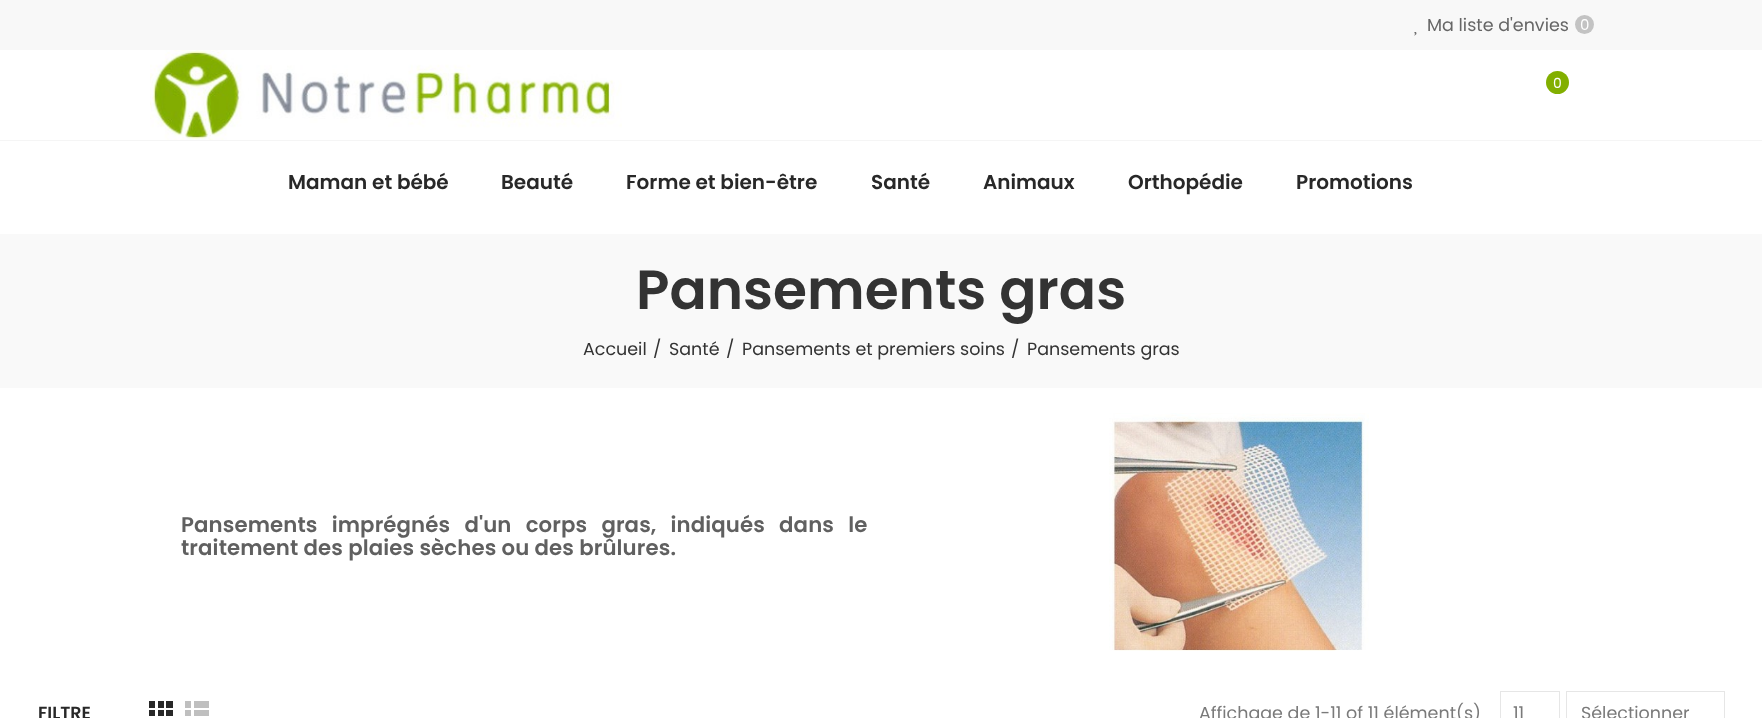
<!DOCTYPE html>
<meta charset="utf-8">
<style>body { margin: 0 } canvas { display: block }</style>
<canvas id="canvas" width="1762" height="718"></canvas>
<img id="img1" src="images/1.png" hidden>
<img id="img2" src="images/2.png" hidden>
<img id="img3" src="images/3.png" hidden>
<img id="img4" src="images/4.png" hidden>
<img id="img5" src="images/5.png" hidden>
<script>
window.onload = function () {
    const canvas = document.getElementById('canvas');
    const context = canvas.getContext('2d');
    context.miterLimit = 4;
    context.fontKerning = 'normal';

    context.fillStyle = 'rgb(255, 255, 255)';
    context.fillRect(0, 0, 1762, 718);
    context.fillStyle = 'rgb(248, 248, 248)';
    context.fillRect(0, 0, 1762, 50);
    context.fillStyle = 'rgb(195, 195, 195)';
    context.beginPath();
    context.arc(1584.5, 24.5, 9.5, 0, 2 * Math.PI);
    context.fill();
    context.drawImage(document.getElementById('img1'), 1414, 32, 3, 4);
    context.fillStyle = 'rgb(245, 245, 245)';
    context.fillRect(0, 140, 1762, 1);
    context.drawImage(document.getElementById('img2'), 150, 50, 472, 90);
    context.fillStyle = 'rgb(130, 175, 0)';
    context.beginPath();
    context.arc(1557.5, 82.5, 11.5, 0, 2 * Math.PI);
    context.fill();
    context.fillStyle = 'rgb(249, 249, 249)';
    context.fillRect(0, 234, 1762, 154);
    context.drawImage(document.getElementById('img3'), 1109, 413, 260, 238);
    context.drawImage(document.getElementById('img4'), 149, 701, 24, 15);
    context.drawImage(document.getElementById('img5'), 185, 701, 24, 15);
    context.strokeStyle = 'rgb(230, 230, 230)';
    context.strokeRect(1500.5, 691.5, 59, 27);
    context.strokeRect(1566.5, 691.5, 158, 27);
    context.font = '17.5px Poppins';
    context.fillStyle = 'rgb(102, 102, 102)';
    context.fillText('Ma liste d\'envies', 1427, 31);
    context.font = '15px Poppins';
    context.fillStyle = 'rgb(255, 255, 255)';
    context.fillText('0', 1580, 30);
    context.font = '14px Poppins';
    context.fillText('0', 1553, 88);
    context.font = '600 20px Poppins';
    context.fillStyle = 'rgb(40, 40, 40)';
    context.fillText('Maman et bébé', 288, 189);
    context.fillText('Beauté', 501, 189);
    context.fillText('Forme et bien-être', 626, 189);
    context.fillText('Santé', 871, 189);
    context.fillText('Animaux', 983, 189);
    context.fillText('Orthopédie', 1128, 189);
    context.fillText('Promotions', 1296, 189);
    context.font = '600 55px Poppins';
    context.fillStyle = 'rgb(51, 51, 51)';
    context.fillText('Pansements gras', 636, 309);
    context.font = '17.5px Poppins';
    context.fillText('Accueil', 583, 355);
    context.fillText('/', 653, 355);
    context.fillText('Santé', 669, 355);
    context.fillText('/', 726, 355);
    context.fillText('Pansements et premiers soins', 742, 355);
    context.fillText('/', 1011, 355);
    context.fillText('Pansements gras', 1027, 355);
    context.letterSpacing = '0.12px';
    context.wordSpacing = '9px';
    context.font = '600 21.25px Poppins';
    context.fillStyle = 'rgb(96, 96, 96)';
    context.fillText('Pansements imprégnés d\'un corps gras, indiqués dans le', 181, 532);
    context.wordSpacing = '0px';
    context.fillText('traitement des plaies sèches ou des brûlures.', 181, 555);
    context.letterSpacing = '0px';
    context.font = '600 17.5px Poppins';
    context.fillStyle = 'rgb(40, 40, 40)';
    context.fillText('FILTRE', 38, 719);
    context.font = '17.5px Poppins';
    context.fillStyle = 'rgb(122, 122, 122)';
    context.fillText('Affichage de 1-11 of 11 élément(s)', 1199, 719);
    context.fillText('11', 1513, 719);
    context.fillText('Sélectionner', 1581, 719);
};
</script>
